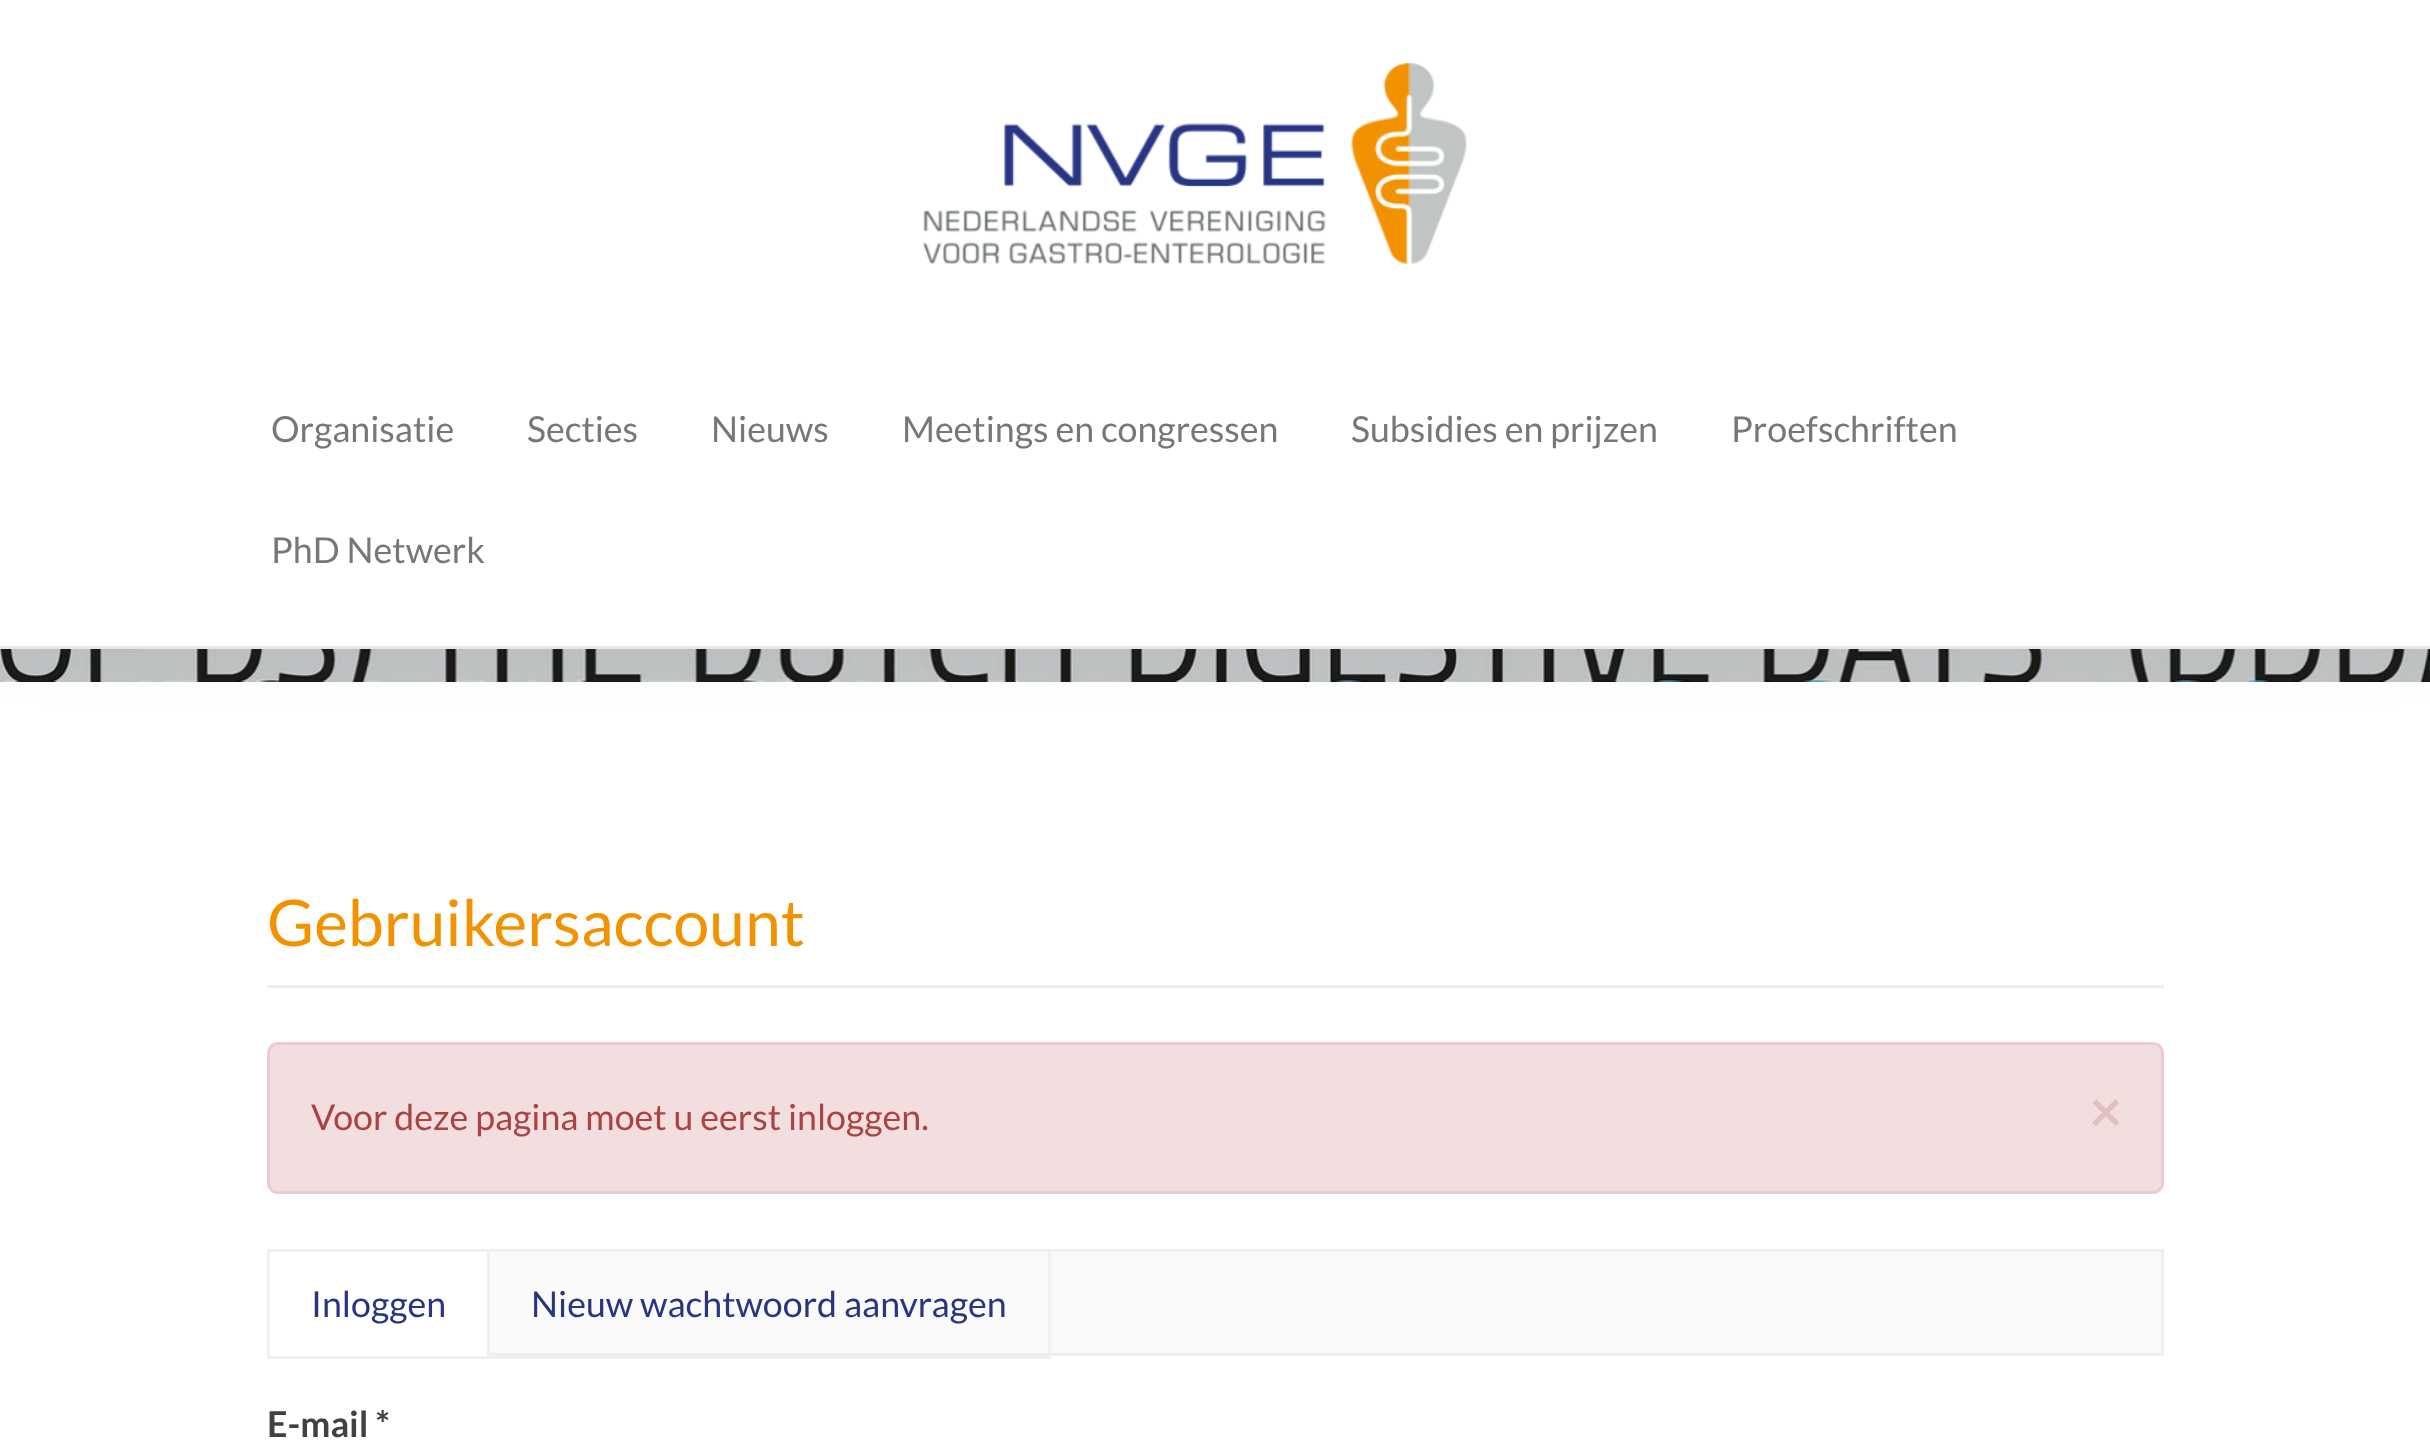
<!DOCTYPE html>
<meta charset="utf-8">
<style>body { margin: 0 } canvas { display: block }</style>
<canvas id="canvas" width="2430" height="1443"></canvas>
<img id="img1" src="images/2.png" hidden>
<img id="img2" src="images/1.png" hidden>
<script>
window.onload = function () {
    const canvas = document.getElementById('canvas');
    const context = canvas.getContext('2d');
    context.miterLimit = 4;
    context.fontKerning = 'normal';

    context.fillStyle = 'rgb(255, 255, 255)';
    context.fillRect(0, 0, 2430, 1443);
    context.drawImage(document.getElementById('img1'), 0, 649, 2430, 33);
    context.fillStyle = 'rgba(0, 0, 0, 0.05)';
    context.filter = 'blur(34.5px)';
    context.beginPath();
    context.rect(6, 0, 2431, 649);
    context.fill();
    context.filter = 'none';
    context.fillStyle = 'rgb(255, 255, 255)';
    context.fillRect(0, 0, 2430, 646);
    context.fillStyle = 'rgb(231, 231, 231)';
    context.fillRect(0, 646, 2430, 3);
    context.drawImage(document.getElementById('img2'), 923, 63, 544, 201);
    context.fillStyle = 'rgb(238, 238, 238)';
    context.fillRect(267, 985, 1897, 3);
    context.fillStyle = 'rgb(242, 222, 222)';
    context.beginPath();
    context.roundRect(268.5, 1043.5, 1894, 149, 9.5);
    context.fill();
    context.strokeStyle = 'rgb(235, 204, 209)';
    context.lineWidth = 3;
    context.stroke();
    context.fillStyle = 'rgb(250, 250, 250)';
    context.fillRect(490, 1252, 1671, 101);
    context.strokeStyle = 'rgb(239, 239, 239)';
    context.strokeRect(268.5, 1250.5, 1894, 104);
    context.fillStyle = 'rgb(255, 255, 255)';
    context.fillRect(270, 1353, 217, 3);
    context.strokeRect(268.5, 1250.5, 220, 107);
    context.strokeRect(488.5, 1250.5, 561, 107);
    context.font = '35.75px Lato';
    context.fillStyle = 'rgb(119, 119, 119)';
    context.fillText('Organisatie', 271, 442);
    context.fillText('Secties', 527, 442);
    context.fillText('Nieuws', 711, 442);
    context.fillText('Meetings en congressen', 902, 442);
    context.fillText('Subsidies en prijzen', 1351, 442);
    context.fillText('Proefschriften', 1731, 442);
    context.fillText('PhD Netwerk', 271, 563);
    context.font = '64.25px Lato';
    context.fillStyle = 'rgb(243, 146, 0)';
    context.fillText('Gebruikersaccount', 267, 946);
    context.font = '35.75px Lato';
    context.fillStyle = 'rgb(169, 68, 66)';
    context.fillText('Voor deze pagina moet u eerst inloggen.', 311, 1130);
    context.font = 'bold 58px Lato';
    context.fillStyle = 'rgb(227, 191, 191)';
    context.fillText('×', 2089, 1132);
    context.font = '35.75px Lato';
    context.fillStyle = 'rgb(39, 53, 131)';
    context.fillText('Inloggen', 311, 1317);
    context.fillText('Nieuw wachtwoord aanvragen', 531, 1317);
    context.font = 'bold 35.75px Lato';
    context.fillStyle = 'rgb(65, 65, 65)';
    context.fillText('E-mail *', 267, 1437);
};
</script>
